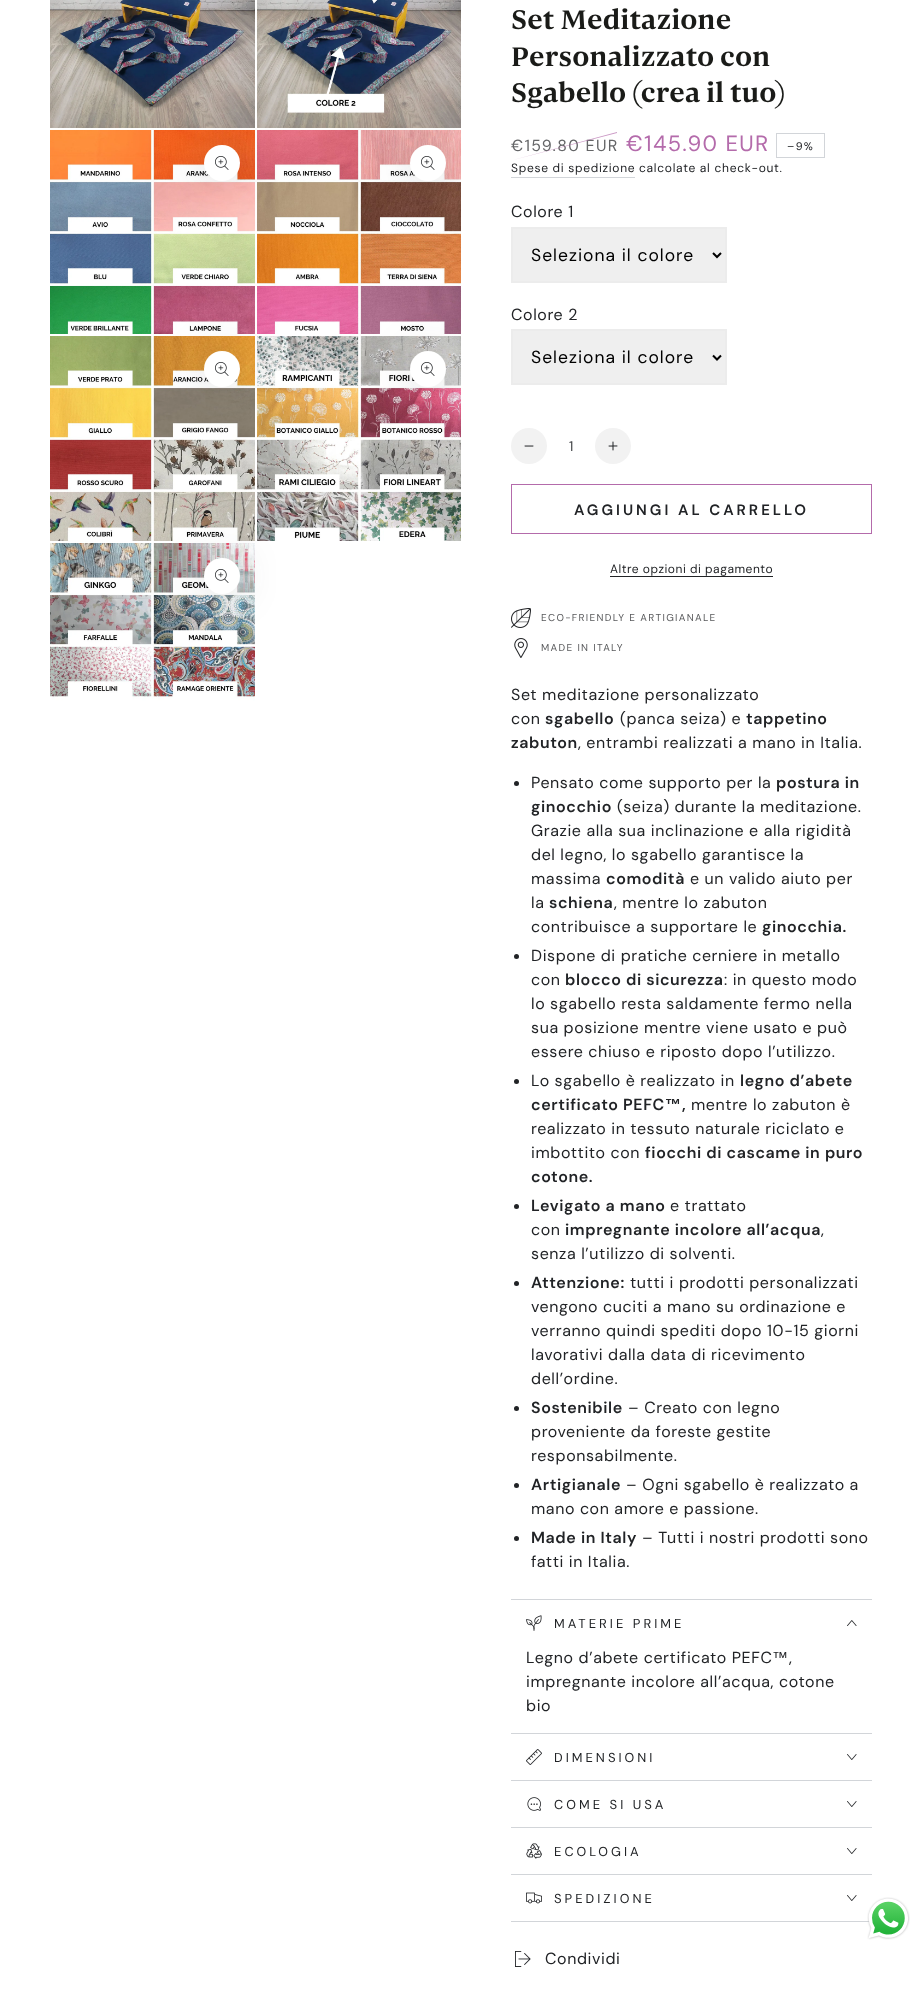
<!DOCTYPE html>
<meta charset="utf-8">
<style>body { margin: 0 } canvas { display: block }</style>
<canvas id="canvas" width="922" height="1989"></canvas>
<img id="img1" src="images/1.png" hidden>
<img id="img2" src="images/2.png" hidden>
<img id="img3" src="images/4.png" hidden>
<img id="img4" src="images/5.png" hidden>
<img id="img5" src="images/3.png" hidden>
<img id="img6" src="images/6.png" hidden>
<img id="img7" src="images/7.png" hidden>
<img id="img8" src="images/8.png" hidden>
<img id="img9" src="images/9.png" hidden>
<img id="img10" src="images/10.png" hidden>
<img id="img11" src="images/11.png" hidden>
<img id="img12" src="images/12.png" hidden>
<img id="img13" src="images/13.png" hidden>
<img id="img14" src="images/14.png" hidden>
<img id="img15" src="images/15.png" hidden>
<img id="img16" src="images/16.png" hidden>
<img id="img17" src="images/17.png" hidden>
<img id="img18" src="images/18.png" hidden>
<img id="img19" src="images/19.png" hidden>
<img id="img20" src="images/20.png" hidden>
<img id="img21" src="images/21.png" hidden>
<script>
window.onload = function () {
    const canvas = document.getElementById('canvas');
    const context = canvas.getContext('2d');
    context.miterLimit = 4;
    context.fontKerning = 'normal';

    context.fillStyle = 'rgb(255, 255, 255)';
    context.fillRect(0, 0, 922, 1989);
    context.drawImage(document.getElementById('img1'), 50, 0, 205, 128);
    context.drawImage(document.getElementById('img2'), 257, 0, 204, 128);
    context.drawImage(document.getElementById('img3'), 50, 130, 205, 204);
    context.drawImage(document.getElementById('img4'), 257, 130, 204, 204);
    context.fillStyle = 'rgba(33, 35, 38, 0.2)';
    context.filter = 'blur(20px)';
    context.beginPath();
    context.roundRect(204, 145, 36, 36, 18);
    context.fill();
    context.filter = 'none';
    context.fillStyle = 'rgb(255, 255, 255)';
    context.beginPath();
    context.arc(222, 163, 18, 0, 2 * Math.PI);
    context.fill();
    context.drawImage(document.getElementById('img5'), 215, 156, 14, 14);
    context.save();
    context.beginPath();
    context.rect(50, 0, 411, 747);
    context.clip();
    context.fillStyle = 'rgba(33, 35, 38, 0.2)';
    context.filter = 'blur(20px)';
    context.beginPath();
    context.roundRect(410, 145, 36, 36, 18);
    context.fill();
    context.filter = 'none';
    context.restore();
    context.beginPath();
    context.arc(428, 163, 18, 0, 2 * Math.PI);
    context.fill();
    context.drawImage(document.getElementById('img5'), 421, 156, 14, 14);
    context.drawImage(document.getElementById('img6'), 50, 336, 205, 205);
    context.drawImage(document.getElementById('img7'), 257, 336, 204, 205);
    context.fillStyle = 'rgba(33, 35, 38, 0.2)';
    context.filter = 'blur(20px)';
    context.beginPath();
    context.roundRect(204, 351, 36, 36, 18);
    context.fill();
    context.filter = 'none';
    context.fillStyle = 'rgb(255, 255, 255)';
    context.beginPath();
    context.arc(222, 369, 18, 0, 2 * Math.PI);
    context.fill();
    context.drawImage(document.getElementById('img5'), 215, 362, 14, 14);
    context.save();
    context.beginPath();
    context.rect(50, 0, 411, 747);
    context.clip();
    context.fillStyle = 'rgba(33, 35, 38, 0.2)';
    context.filter = 'blur(20px)';
    context.beginPath();
    context.roundRect(410, 351, 36, 36, 18);
    context.fill();
    context.filter = 'none';
    context.restore();
    context.beginPath();
    context.arc(428, 369, 18, 0, 2 * Math.PI);
    context.fill();
    context.drawImage(document.getElementById('img5'), 421, 362, 14, 14);
    context.drawImage(document.getElementById('img8'), 50, 543, 205, 204);
    context.fillStyle = 'rgba(33, 35, 38, 0.2)';
    context.filter = 'blur(20px)';
    context.beginPath();
    context.roundRect(204, 558, 36, 36, 18);
    context.fill();
    context.filter = 'none';
    context.fillStyle = 'rgb(255, 255, 255)';
    context.beginPath();
    context.arc(222, 576, 18, 0, 2 * Math.PI);
    context.fill();
    context.drawImage(document.getElementById('img5'), 215, 569, 14, 14);
    context.strokeStyle = 'rgb(210, 213, 217)';
    context.strokeRect(776.5, 133.5, 48, 24);
    context.fillStyle = 'rgb(210, 213, 217)';
    context.fillRect(511, 177, 124, 1);
    context.fillStyle = 'rgb(239, 239, 239)';
    context.beginPath();
    context.rect(512, 228, 214, 54);
    context.fill();
    context.strokeStyle = 'rgb(236, 236, 236)';
    context.lineWidth = 2;
    context.stroke();
    context.beginPath();
    context.moveTo(713, 253);
    context.lineTo(717, 257);
    context.lineTo(721, 253);
    context.strokeStyle = 'rgb(0, 0, 0)';
    context.stroke();
    context.beginPath();
    context.rect(512, 330, 214, 54);
    context.fill();
    context.strokeStyle = 'rgb(236, 236, 236)';
    context.stroke();
    context.beginPath();
    context.moveTo(713, 355.5);
    context.lineTo(717, 359.5);
    context.lineTo(721, 355.5);
    context.strokeStyle = 'rgb(0, 0, 0)';
    context.stroke();
    context.fillStyle = 'rgb(242, 242, 242)';
    context.beginPath();
    context.arc(529, 446, 18, 0, 2 * Math.PI);
    context.fill();
    context.drawImage(document.getElementById('img9'), 524, 445, 10, 2);
    context.beginPath();
    context.arc(613, 446, 18, 0, 2 * Math.PI);
    context.fill();
    context.drawImage(document.getElementById('img10'), 608, 441, 10, 10);
    context.strokeStyle = 'rgb(180, 107, 171)';
    context.lineWidth = 1;
    context.strokeRect(511.5, 484.5, 360, 49);
    context.fillStyle = 'rgb(33, 35, 38)';
    context.fillRect(610, 576, 163, 1);
    context.drawImage(document.getElementById('img11'), 511, 608, 20, 20);
    context.drawImage(document.getElementById('img12'), 514, 638, 14, 20);
    context.beginPath();
    context.arc(516.5, 783.5, 2.5, 0, 2 * Math.PI);
    context.fill();
    context.beginPath();
    context.arc(516.5, 956.5, 2.5, 0, 2 * Math.PI);
    context.fill();
    context.beginPath();
    context.arc(516.5, 1081.5, 2.5, 0, 2 * Math.PI);
    context.fill();
    context.beginPath();
    context.arc(516.5, 1206.5, 2.5, 0, 2 * Math.PI);
    context.fill();
    context.beginPath();
    context.arc(516.5, 1283.5, 2.5, 0, 2 * Math.PI);
    context.fill();
    context.beginPath();
    context.arc(516.5, 1408.5, 2.5, 0, 2 * Math.PI);
    context.fill();
    context.beginPath();
    context.arc(516.5, 1485.5, 2.5, 0, 2 * Math.PI);
    context.fill();
    context.beginPath();
    context.arc(516.5, 1538.5, 2.5, 0, 2 * Math.PI);
    context.fill();
    context.fillStyle = 'rgb(210, 213, 217)';
    context.fillRect(511, 1599, 361, 1);
    context.fillRect(511, 1733, 361, 1);
    context.drawImage(document.getElementById('img13'), 526, 1615, 16, 16);
    context.drawImage(document.getElementById('img14'), 847, 1620, 10, 6);
    context.fillRect(511, 1780, 361, 1);
    context.drawImage(document.getElementById('img15'), 526, 1749, 16, 16);
    context.drawImage(document.getElementById('img16'), 847, 1754, 10, 6);
    context.fillRect(511, 1827, 361, 1);
    context.drawImage(document.getElementById('img17'), 527, 1797, 14, 14);
    context.drawImage(document.getElementById('img16'), 847, 1801, 10, 6);
    context.fillRect(511, 1874, 361, 1);
    context.drawImage(document.getElementById('img18'), 526, 1843, 16, 16);
    context.drawImage(document.getElementById('img16'), 847, 1848, 10, 6);
    context.fillRect(511, 1921, 361, 1);
    context.drawImage(document.getElementById('img19'), 526, 1892, 16, 12);
    context.drawImage(document.getElementById('img16'), 847, 1895, 10, 6);
    context.drawImage(document.getElementById('img20'), 515, 1951, 16, 16);
    context.drawImage(document.getElementById('img21'), 867, 1897, 43, 43);
    context.letterSpacing = '0.6px';
    context.font = '600 28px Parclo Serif';
    context.fillStyle = 'rgb(26, 27, 24)';
    context.fillText('Set Meditazione', 511, 29);
    context.fillText('Personalizzato con', 511, 66);
    context.fillText('Sgabello (crea il tuo)', 511, 102);
    context.letterSpacing = '1.3px';
    context.font = '16px DM Sans';
    context.fillStyle = 'rgb(100, 101, 103)';
    context.fillText('€159.80 EUR', 511, 151);
    context.fillStyle = 'rgba(180, 107, 171, 0.7)';
    context.beginPath();
    context.moveTo(513, 160);
    context.lineTo(617, 132);
    context.lineTo(617, 133);
    context.closePath();
    context.fill();
    context.font = '22px DM Sans';
    context.fillStyle = 'rgb(180, 107, 171)';
    context.fillText('€145.90 EUR', 626, 151);
    context.font = '11px DM Sans';
    context.fillStyle = 'rgb(33, 35, 38)';
    context.fillText('–9%', 787, 150);
    context.letterSpacing = '0.7px';
    context.font = '12px "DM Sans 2"';
    context.fillText('Spese di spedizione', 511, 172);
    context.fillText('calcolate al check-out.', 639, 172);
    context.letterSpacing = '0.6px';
    context.font = '16px "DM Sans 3"';
    context.fillText('Colore 1', 511, 217);
    context.letterSpacing = '1px';
    context.font = '17.5px "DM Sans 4"';
    context.fillStyle = 'rgb(0, 0, 0)';
    context.fillText('Seleziona il colore', 531, 261);
    context.letterSpacing = '0.6px';
    context.font = '16px "DM Sans 3"';
    context.fillStyle = 'rgb(33, 35, 38)';
    context.fillText('Colore 2', 511, 320);
    context.letterSpacing = '1px';
    context.font = '17.5px "DM Sans 4"';
    context.fillStyle = 'rgb(0, 0, 0)';
    context.fillText('Seleziona il colore', 531, 363);
    context.letterSpacing = '0px';
    context.font = '14px "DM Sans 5"';
    context.fillStyle = 'rgb(66, 68, 71)';
    context.fillText('1', 569, 451);
    context.letterSpacing = '3px';
    context.font = '600 15px "DM Sans 2"';
    context.fillStyle = 'rgb(33, 35, 38)';
    context.fillText('AGGIUNGI AL CARRELLO', 574, 515);
    context.letterSpacing = '0.5px';
    context.font = '12px "DM Sans 2"';
    context.fillText('Altre opzioni di pagamento', 610, 573);
    context.letterSpacing = '1.3px';
    context.font = '10px DM Sans';
    context.fillStyle = 'rgb(89, 90, 92)';
    context.fillText('ECO-FRIENDLY E ARTIGIANALE', 541, 621);
    context.fillText('MADE IN ITALY', 541, 651);
    context.letterSpacing = '0.6px';
    context.font = '16px "DM Sans 3"';
    context.fillStyle = 'rgb(33, 35, 38)';
    context.fillText('Set meditazione personalizzato', 511, 700);
    context.fillText('con', 511, 724);
    context.font = '600 16px DM Sans';
    context.fillText('sgabello', 545, 724);
    context.font = '16px "DM Sans 3"';
    context.fillText('(panca seiza) e', 620, 724);
    context.font = '600 16px DM Sans';
    context.fillText('tappetino', 746, 724);
    context.fillText('zabuton', 511, 748);
    context.font = '16px "DM Sans 3"';
    context.fillText(', entrambi realizzati a mano in Italia.', 578, 748);
    context.fillText('Pensato come supporto per la', 531, 788);
    context.font = '600 16px DM Sans';
    context.fillText('postura in', 776, 788);
    context.fillText('ginocchio', 531, 812);
    context.font = '16px "DM Sans 3"';
    context.fillText('(seiza) durante la meditazione.', 617, 812);
    context.fillText('Grazie alla sua inclinazione e alla rigidità', 531, 836);
    context.fillText('del legno, lo sgabello garantisce la', 531, 860);
    context.fillText('massima', 531, 884);
    context.font = '600 16px DM Sans';
    context.fillText('comodità', 606, 884);
    context.font = '16px "DM Sans 3"';
    context.fillText('e un valido aiuto per', 690, 884);
    context.fillText('la', 531, 908);
    context.font = '600 16px DM Sans';
    context.fillText('schiena', 549, 908);
    context.font = '16px "DM Sans 3"';
    context.fillText(', mentre lo zabuton', 614, 908);
    context.fillText('contribuisce a supportare le', 531, 932);
    context.font = '600 16px DM Sans';
    context.fillText('ginocchia.', 762, 932);
    context.font = '16px "DM Sans 3"';
    context.fillText('Dispone di pratiche cerniere in metallo', 531, 961);
    context.fillText('con', 531, 985);
    context.font = '600 16px DM Sans';
    context.fillText('blocco di sicurezza', 565, 985);
    context.font = '16px "DM Sans 3"';
    context.fillText(': in questo modo', 724, 985);
    context.fillText('lo sgabello resta saldamente fermo nella', 531, 1009);
    context.fillText('sua posizione mentre viene usato e può', 531, 1033);
    context.fillText('essere chiuso e riposto dopo l’utilizzo.', 531, 1057);
    context.fillText('Lo sgabello è realizzato in', 531, 1086);
    context.font = '600 16px DM Sans';
    context.fillText('legno d’abete', 740, 1086);
    context.fillText('certificato PEFC', 531, 1110);
    context.font = 'bold 16px Liberation Sans';
    context.fillText('™', 665, 1110);
    context.font = '16px "DM Sans 3"';
    context.fillText('mentre lo zabuton è', 691, 1110);
    context.font = '600 16px DM Sans';
    context.fillText(',', 682, 1110);
    context.font = '16px "DM Sans 3"';
    context.fillText('realizzato in tessuto naturale riciclato e', 531, 1134);
    context.fillText('imbottito con', 531, 1158);
    context.font = '600 16px DM Sans';
    context.fillText('fiocchi di cascame in puro', 645, 1158);
    context.fillText('cotone.', 531, 1182);
    context.fillText('Levigato a mano', 531, 1211);
    context.font = '16px "DM Sans 3"';
    context.fillText('e trattato', 670, 1211);
    context.fillText('con', 531, 1235);
    context.font = '600 16px DM Sans';
    context.fillText('impregnante incolore all’acqua', 565, 1235);
    context.font = '16px "DM Sans 3"';
    context.fillText(',', 821, 1235);
    context.fillText('senza l’utilizzo di solventi.', 531, 1259);
    context.font = '600 16px DM Sans';
    context.fillText('Attenzione:', 531, 1288);
    context.font = '16px "DM Sans 3"';
    context.fillText('tutti i prodotti personalizzati', 630, 1288);
    context.fillText('vengono cuciti a mano su ordinazione e', 531, 1312);
    context.fillText('verranno quindi spediti dopo 10-15 giorni', 531, 1336);
    context.fillText('lavorativi dalla data di ricevimento', 531, 1360);
    context.fillText('dell’ordine.', 531, 1384);
    context.font = '600 16px DM Sans';
    context.fillText('Sostenibile', 531, 1413);
    context.font = '16px "DM Sans 3"';
    context.fillText('– Creato con legno', 628, 1413);
    context.fillText('proveniente da foreste gestite', 531, 1437);
    context.fillText('responsabilmente.', 531, 1461);
    context.font = '600 16px DM Sans';
    context.fillText('Artigianale', 531, 1490);
    context.font = '16px "DM Sans 3"';
    context.fillText('– Ogni sgabello è realizzato a', 626, 1490);
    context.fillText('mano con amore e passione.', 531, 1514);
    context.font = '600 16px DM Sans';
    context.fillText('Made in Italy', 531, 1543);
    context.font = '16px "DM Sans 3"';
    context.fillText('– Tutti i nostri prodotti sono', 642, 1543);
    context.fillText('fatti in Italia.', 531, 1567);
    context.letterSpacing = '3px';
    context.font = '13px DM Sans';
    context.fillText('MATERIE PRIME', 554, 1628);
    context.letterSpacing = '0.6px';
    context.font = '16px "DM Sans 3"';
    context.fillText('Legno d’abete certificato PEFC', 526, 1663);
    context.font = '16px Liberation Sans';
    context.fillText('™', 772, 1663);
    context.font = '16px "DM Sans 3"';
    context.fillText(',', 789, 1663);
    context.fillText('impregnante incolore all’acqua, cotone', 526, 1687);
    context.fillText('bio', 526, 1711);
    context.letterSpacing = '3px';
    context.font = '13px DM Sans';
    context.fillText('DIMENSIONI', 554, 1762);
    context.fillText('COME SI USA', 554, 1809);
    context.fillText('ECOLOGIA', 554, 1856);
    context.fillText('SPEDIZIONE', 554, 1903);
    context.letterSpacing = '0.6px';
    context.font = '16px "DM Sans 3"';
    context.fillText('Condividi', 545, 1964);
};
</script>
